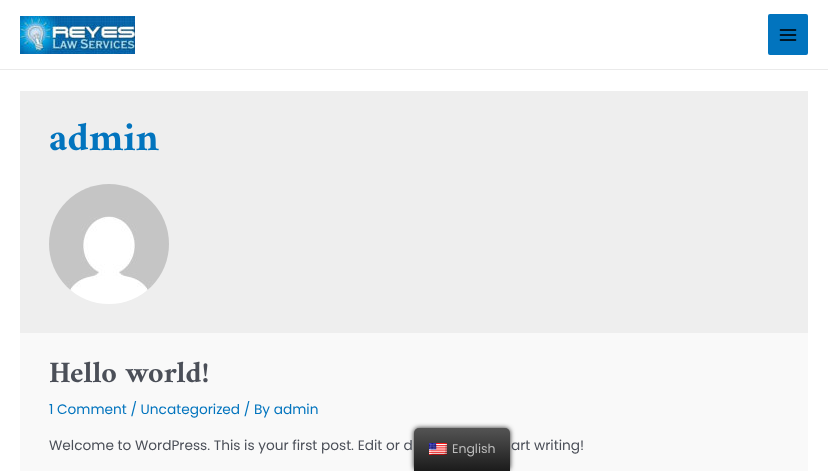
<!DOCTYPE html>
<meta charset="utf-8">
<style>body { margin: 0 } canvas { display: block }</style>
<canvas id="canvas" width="828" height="471"></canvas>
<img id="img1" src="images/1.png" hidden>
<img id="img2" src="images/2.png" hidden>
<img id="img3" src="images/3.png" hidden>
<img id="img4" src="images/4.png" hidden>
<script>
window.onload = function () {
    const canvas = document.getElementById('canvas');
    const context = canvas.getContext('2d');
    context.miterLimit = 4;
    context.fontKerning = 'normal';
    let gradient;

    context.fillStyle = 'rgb(255, 255, 255)';
    context.fillRect(0, 0, 828, 471);
    context.fillStyle = 'rgb(234, 234, 234)';
    context.fillRect(0, 69, 828, 1);
    context.drawImage(document.getElementById('img1'), 20, 16, 115, 38);
    context.fillStyle = 'rgb(2, 116, 190)';
    context.beginPath();
    context.roundRect(768, 14, 40, 41, 2);
    context.fill();
    context.drawImage(document.getElementById('img2'), 779, 29, 18, 12);
    context.fillStyle = 'rgb(238, 238, 238)';
    context.fillRect(20, 91, 788, 242);
    context.drawImage(document.getElementById('img3'), 49, 184, 120, 120);
    context.fillStyle = 'rgb(249, 249, 249)';
    context.fillRect(20, 333, 788, 138);
    context.fillStyle = 'rgb(33, 33, 33)';
    context.filter = 'blur(2.5px)';
    context.beginPath();
    context.roundRect(414, 428, 96, 43, 5);
    context.fill();
    context.filter = 'none';
    gradient = context.createLinearGradient(462, 471, 462, 428);
    gradient.addColorStop(0, 'rgb(27, 27, 27)');
    gradient.addColorStop(1, 'rgb(84, 84, 84)');
    context.fillStyle = gradient;
    context.beginPath();
    context.roundRect(414, 428, 96, 43, [5, 5, 0, 0]);
    context.fill();
    context.drawImage(document.getElementById('img4'), 429, 443, 18, 12);
    context.font = 'bold 40px Amiri';
    context.fillStyle = 'rgb(2, 116, 190)';
    context.fillText('admin', 49, 150);
    context.font = 'bold 30px Amiri';
    context.fillStyle = 'rgb(75, 79, 88)';
    context.fillText('Hello world!', 49, 382);
    context.font = '13.7px Poppins';
    context.fillStyle = 'rgb(2, 116, 190)';
    context.fillText('1 Comment / Uncategorized / By admin', 49, 414);
    context.fillStyle = 'rgb(75, 79, 88)';
    context.fillText('Welcome to WordPress. This is your first post. Edit or d', 49, 450);
    context.fillText('art writing!', 511, 450);
    context.font = '12.5px Poppins';
    context.fillStyle = 'rgb(189, 189, 189)';
    context.fillText('English', 452, 453);
};
</script>
